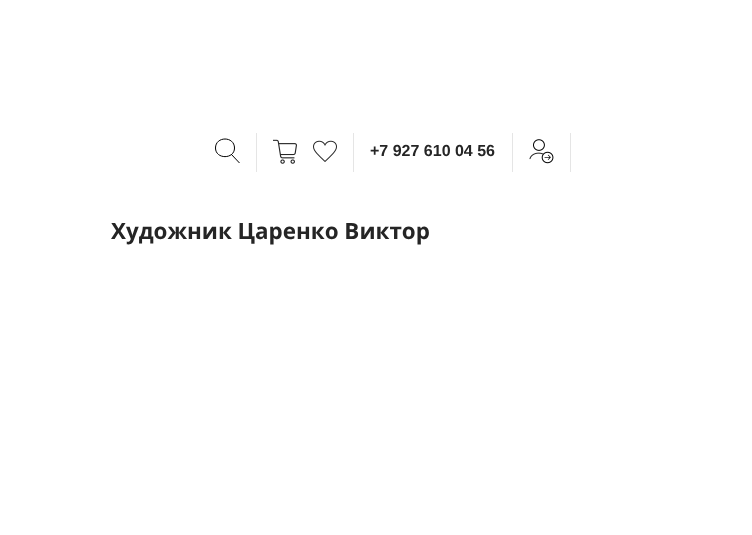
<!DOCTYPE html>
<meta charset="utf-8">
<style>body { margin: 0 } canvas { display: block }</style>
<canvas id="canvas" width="752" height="535"></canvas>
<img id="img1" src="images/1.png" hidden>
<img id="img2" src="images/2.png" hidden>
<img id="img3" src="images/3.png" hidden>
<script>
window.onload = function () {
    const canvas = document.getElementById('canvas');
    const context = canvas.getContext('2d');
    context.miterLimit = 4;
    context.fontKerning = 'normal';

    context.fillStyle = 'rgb(255, 255, 255)';
    context.fillRect(0, 0, 752, 535);
    context.beginPath();
    context.moveTo(234.5, 148);
    context.bezierCurveTo(234.5, 159.5, 215.5, 159.5, 215.5, 148);
    context.bezierCurveTo(215.5, 136, 234.5, 136, 234.5, 148);
    context.closePath();
    context.moveTo(231, 154);
    context.lineTo(239.5, 163);
    context.strokeStyle = 'rgb(0, 0, 0)';
    context.stroke();
    context.fillStyle = 'rgb(229, 229, 229)';
    context.fillRect(256, 133, 1, 39);
    context.drawImage(document.getElementById('img1'), 273, 139, 24, 25);
    context.drawImage(document.getElementById('img2'), 313, 140, 24, 22);
    context.fillRect(353, 133, 1, 39);
    context.fillRect(512, 133, 1, 39);
    context.drawImage(document.getElementById('img3'), 529, 139, 25, 25);
    context.fillRect(570, 133, 1, 39);
    context.font = 'bold 16px Liberation Sans';
    context.fillStyle = 'rgb(37, 37, 37)';
    context.fillText('+7 927 610 04 56', 370, 156);
    context.font = 'bold 22.4px Open Sans';
    context.fillText('Художник Царенко Виктор', 111, 239);
};
</script>
